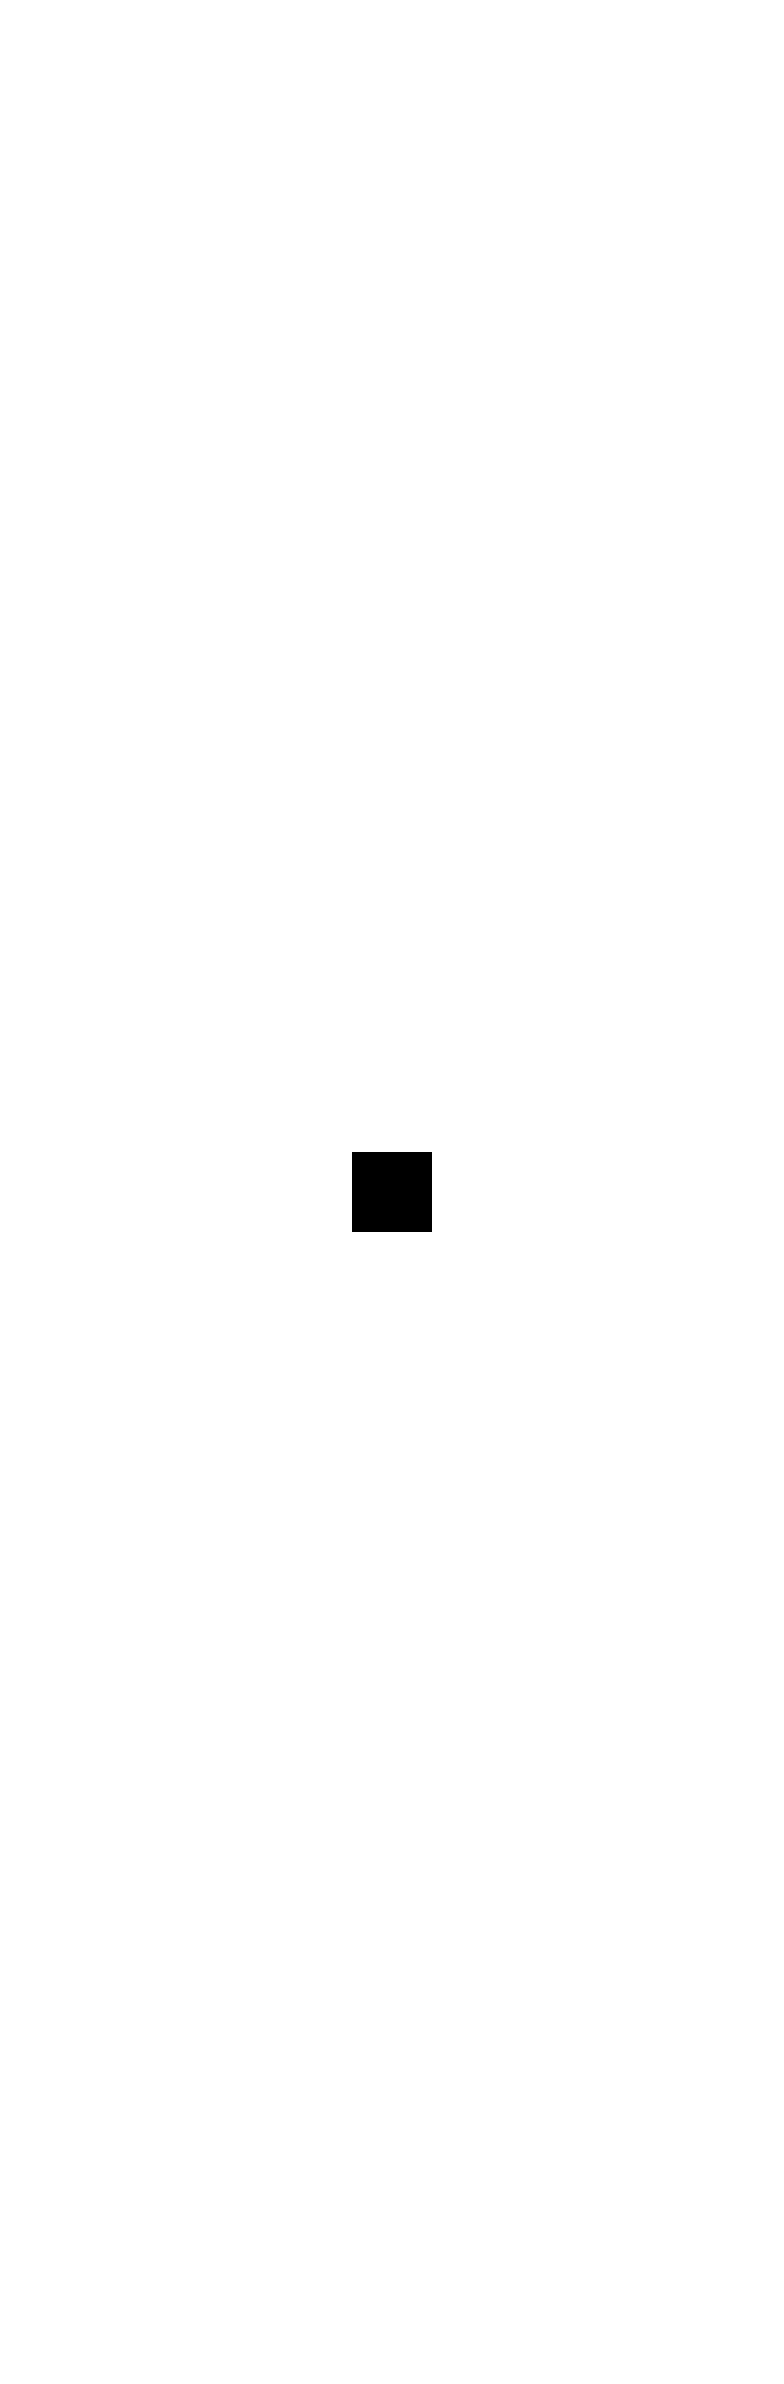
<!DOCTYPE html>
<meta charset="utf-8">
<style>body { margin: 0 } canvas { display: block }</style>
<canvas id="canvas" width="784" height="2384"></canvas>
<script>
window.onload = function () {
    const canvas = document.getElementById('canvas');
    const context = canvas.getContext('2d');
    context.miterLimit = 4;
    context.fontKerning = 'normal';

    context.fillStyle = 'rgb(255, 255, 255)';
    context.fillRect(0, 0, 784, 2384);
    context.fillStyle = 'rgb(0, 0, 0)';
    context.fillRect(352, 1152, 80, 80);
};
</script>
